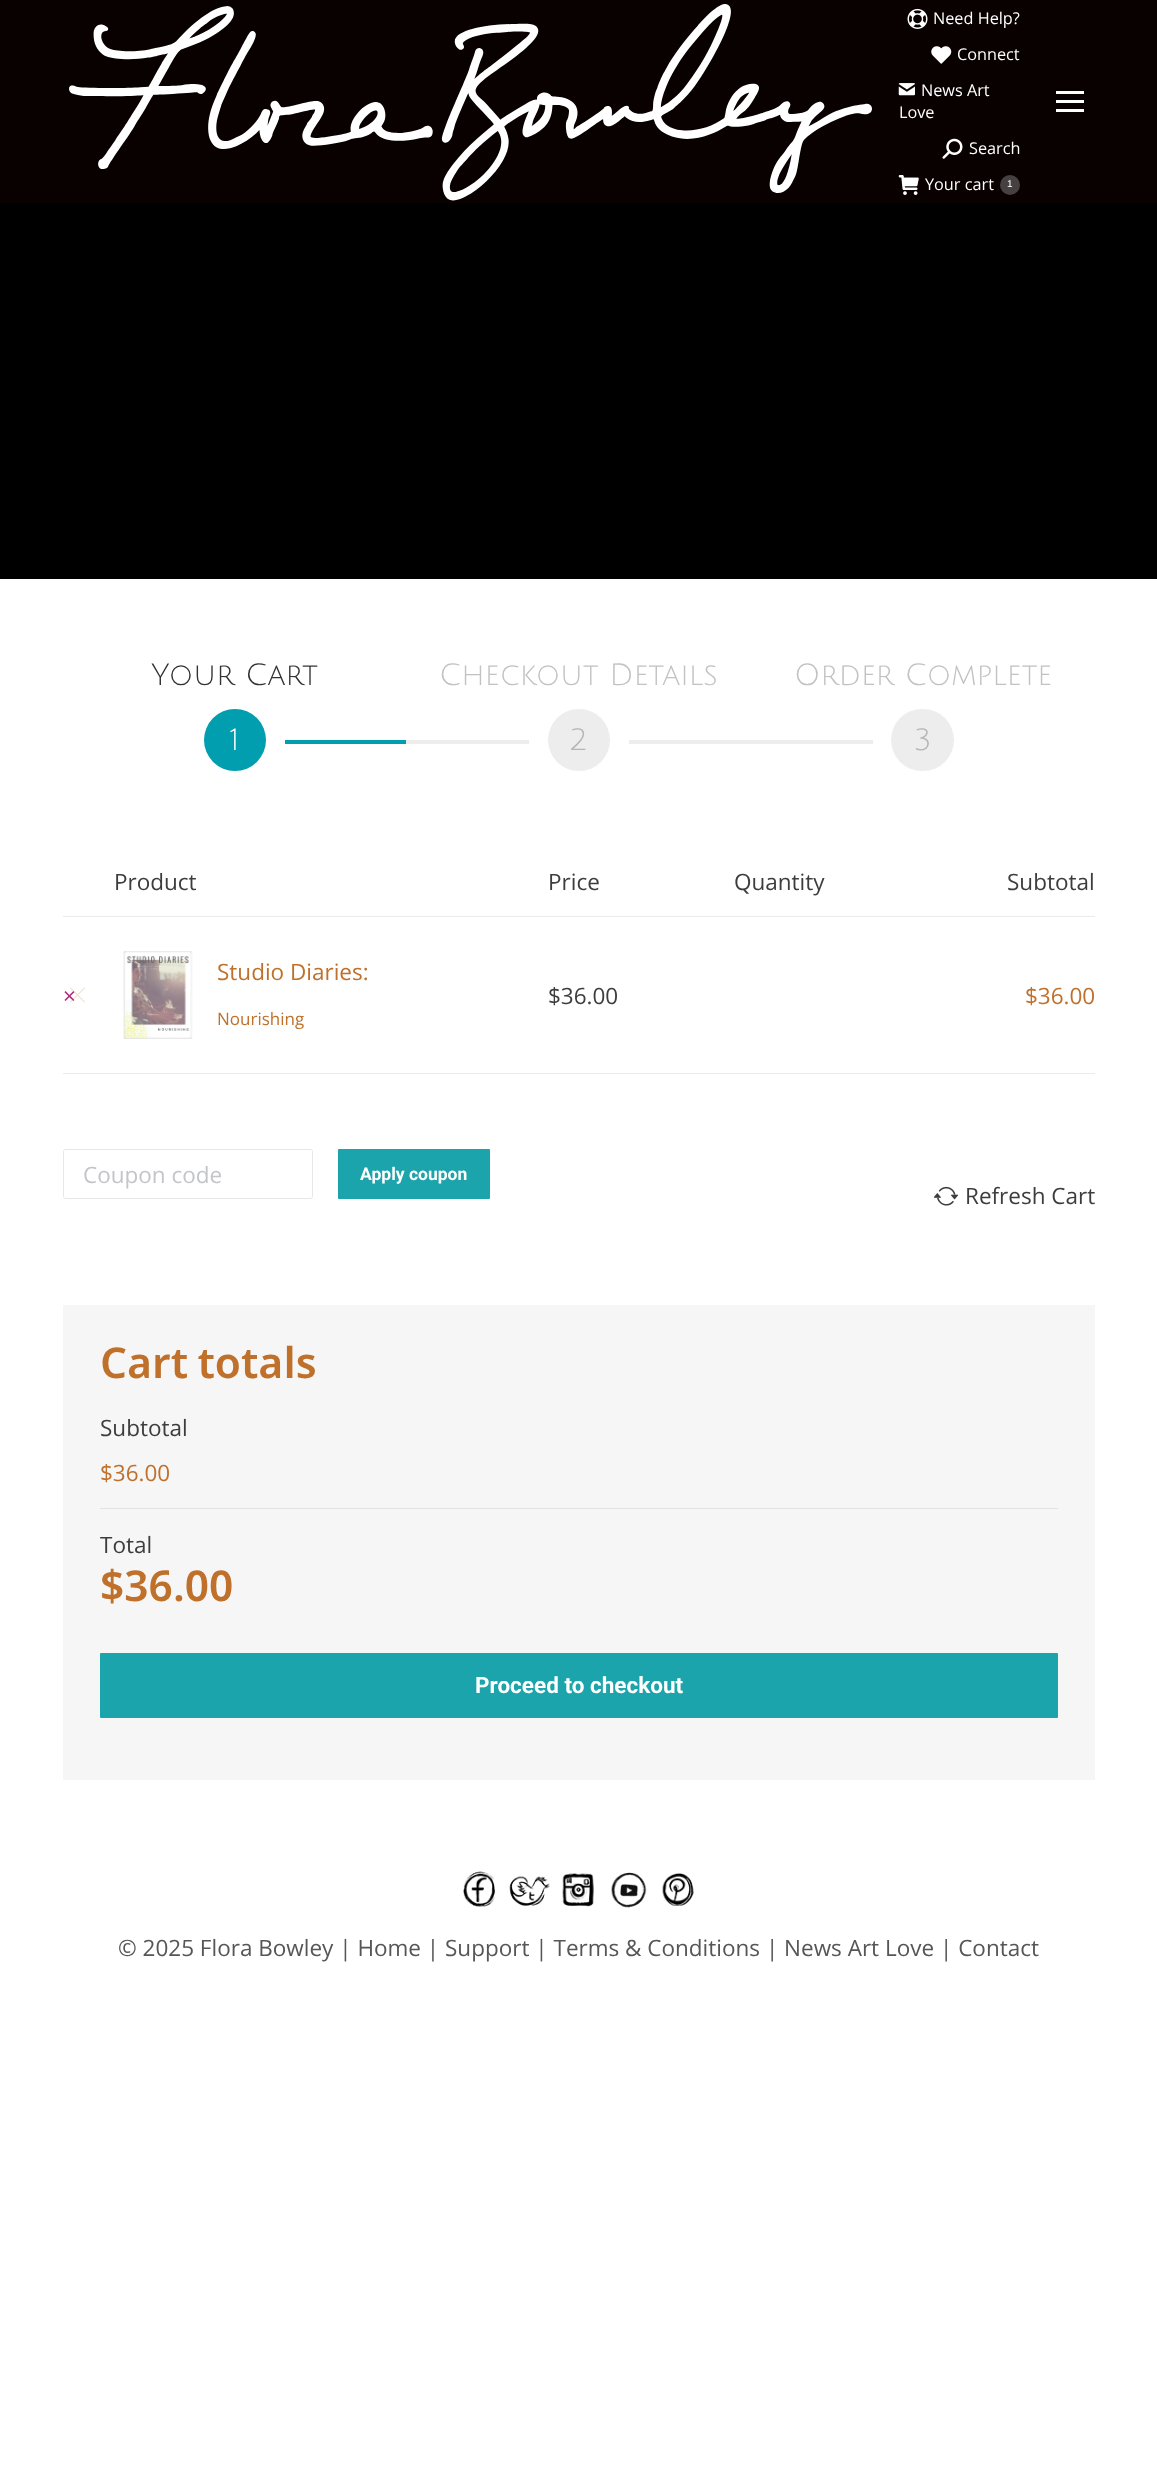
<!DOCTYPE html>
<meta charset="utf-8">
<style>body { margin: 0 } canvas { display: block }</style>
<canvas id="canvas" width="1157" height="2474"></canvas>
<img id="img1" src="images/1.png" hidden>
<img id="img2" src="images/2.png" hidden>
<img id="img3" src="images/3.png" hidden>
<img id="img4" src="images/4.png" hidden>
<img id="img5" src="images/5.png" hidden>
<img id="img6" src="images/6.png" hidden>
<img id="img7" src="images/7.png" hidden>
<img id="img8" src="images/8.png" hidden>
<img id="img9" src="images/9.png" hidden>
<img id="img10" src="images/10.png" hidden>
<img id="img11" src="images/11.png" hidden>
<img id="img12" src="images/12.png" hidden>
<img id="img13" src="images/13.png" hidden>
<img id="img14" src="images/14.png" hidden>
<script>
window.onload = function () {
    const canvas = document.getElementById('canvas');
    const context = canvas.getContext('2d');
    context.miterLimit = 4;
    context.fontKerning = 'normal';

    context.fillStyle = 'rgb(255, 255, 255)';
    context.fillRect(0, 0, 1157, 2474);
    context.fillStyle = 'rgb(9, 0, 0)';
    context.fillRect(0, 0, 1157, 203);
    context.drawImage(document.getElementById('img1'), 69, 4, 803, 197);
    context.drawImage(document.getElementById('img2'), 907, 8, 21, 21);
    context.drawImage(document.getElementById('img3'), 931, 46, 21, 18);
    context.drawImage(document.getElementById('img4'), 898, 83, 17, 13);
    context.drawImage(document.getElementById('img5'), 942, 138, 21, 21);
    context.drawImage(document.getElementById('img6'), 898, 175, 21, 20);
    context.fillStyle = 'rgb(71, 64, 64)';
    context.beginPath();
    context.arc(1010, 185, 10, 0, 2 * Math.PI);
    context.fill();
    context.fillStyle = 'rgb(255, 255, 255)';
    context.fillRect(1056, 91, 28, 3);
    context.fillRect(1056, 100, 28, 3);
    context.fillRect(1056, 109, 28, 3);
    context.fillStyle = 'rgb(0, 0, 0)';
    context.fillRect(0, 203, 1157, 376);
    context.fillStyle = 'rgb(1, 158, 175)';
    context.beginPath();
    context.arc(235, 740, 31, 0, 2 * Math.PI);
    context.fill();
    context.fillRect(285, 740, 121, 4);
    context.fillStyle = 'rgb(237, 237, 237)';
    context.fillRect(406, 740, 123, 4);
    context.beginPath();
    context.arc(579, 740, 31, 0, 2 * Math.PI);
    context.fill();
    context.fillRect(629, 740, 244, 4);
    context.beginPath();
    context.roundRect(891, 709, 63, 62, 31);
    context.fill();
    context.fillStyle = 'rgb(235, 235, 235)';
    context.fillRect(63, 916, 1032, 1);
    context.drawImage(document.getElementById('img7'), 70, 987, 15, 16);
    context.drawImage(document.getElementById('img8'), 123, 951, 70, 88);
    context.fillRect(63, 1073, 1032, 1);
    context.beginPath();
    context.roundRect(63.5, 1149.5, 249, 49, 2);
    context.strokeStyle = 'rgb(231, 231, 231)';
    context.stroke();
    context.fillStyle = 'rgb(27, 164, 171)';
    context.beginPath();
    context.roundRect(338, 1149, 152, 50, 1);
    context.fill();
    context.drawImage(document.getElementById('img9'), 934, 1186, 25, 20);
    context.fillStyle = 'rgb(246, 246, 246)';
    context.fillRect(63, 1305, 1032, 475);
    context.fillStyle = 'rgb(226, 226, 226)';
    context.fillRect(100, 1508, 958, 1);
    context.fillStyle = 'rgb(27, 164, 171)';
    context.beginPath();
    context.roundRect(100, 1653, 958, 65, 1);
    context.fill();
    context.drawImage(document.getElementById('img10'), 463, 1871, 32, 36);
    context.drawImage(document.getElementById('img11'), 509, 1876, 41, 30);
    context.drawImage(document.getElementById('img12'), 562, 1873, 32, 34);
    context.drawImage(document.getElementById('img13'), 611, 1872, 36, 36);
    context.drawImage(document.getElementById('img14'), 662, 1873, 32, 33);
    context.font = '16.25px Open Sans';
    context.fillStyle = 'rgb(255, 255, 255)';
    context.fillText('Need Help?', 933, 24);
    context.fillText('Connect', 957, 60);
    context.fillText('News Art', 921, 96);
    context.fillText('Love', 899, 118);
    context.fillText('Search', 969, 154);
    context.fillText('Your cart', 925, 190);
    context.font = '10px Liberation Sans';
    context.fillText('1', 1007, 187);
    context.font = '30px Julius Sans One';
    context.fillStyle = 'rgb(51, 51, 51)';
    context.fillText('Your Cart', 151, 685);
    context.fillStyle = 'rgb(255, 255, 255)';
    context.fillText('1', 230, 750);
    context.fillStyle = 'rgb(194, 194, 194)';
    context.fillText('Checkout Details', 439, 685);
    context.fillStyle = 'rgb(181, 181, 181)';
    context.fillText('2', 569, 750);
    context.fillStyle = 'rgb(194, 194, 194)';
    context.fillText('Order Complete', 794, 685);
    context.fillStyle = 'rgb(181, 181, 181)';
    context.fillText('3', 914, 750);
    context.font = '22.5px Open Sans';
    context.fillStyle = 'rgb(61, 61, 61)';
    context.fillText('Product', 114, 890);
    context.fillText('Price', 548, 890);
    context.fillText('Quantity', 734, 890);
    context.fillText('Subtotal', 1007, 890);
    context.fillStyle = 'rgb(178, 41, 130)';
    context.fillText('×', 63, 1004);
    context.fillStyle = 'rgb(191, 112, 43)';
    context.fillText('Studio Diaries:', 217, 980);
    context.font = '17px Open Sans';
    context.fillText('Nourishing', 217, 1025);
    context.font = '22.5px Open Sans';
    context.fillStyle = 'rgb(61, 61, 61)';
    context.fillText('$36.00', 548, 1004);
    context.fillStyle = 'rgb(191, 112, 43)';
    context.fillText('$36.00', 1025, 1004);
    context.fillStyle = 'rgb(196, 197, 201)';
    context.fillText('Coupon code', 83, 1183);
    context.font = 'bold 17.5px Roboto';
    context.fillStyle = 'rgb(255, 255, 255)';
    context.fillText('Apply coupon', 360, 1180);
    context.font = '22.5px Open Sans';
    context.fillStyle = 'rgb(61, 61, 61)';
    context.fillText('Refresh Cart', 965, 1204);
    context.font = '600 42.5px Noto Sans Adlam';
    context.fillStyle = 'rgb(191, 112, 43)';
    context.fillText('Cart totals', 100, 1378);
    context.font = '22.5px Open Sans';
    context.fillStyle = 'rgb(61, 61, 61)';
    context.fillText('Subtotal', 100, 1436);
    context.fillStyle = 'rgb(191, 112, 43)';
    context.fillText('$36.00', 100, 1481);
    context.fillStyle = 'rgb(61, 61, 61)';
    context.fillText('Total', 100, 1553);
    context.font = '600 42.5px Noto Sans Adlam';
    context.fillStyle = 'rgb(191, 112, 43)';
    context.fillText('$36.00', 100, 1601);
    context.font = 'bold 22.5px Roboto';
    context.fillStyle = 'rgb(255, 255, 255)';
    context.fillText('Proceed to checkout', 475, 1693);
    context.font = '22.5px Open Sans';
    context.fillStyle = 'rgb(86, 86, 86)';
    context.fillText('© 2025 Flora Bowley | Home | Support | Terms & Conditions | News Art Love | Contact', 118, 1956);
};
</script>
